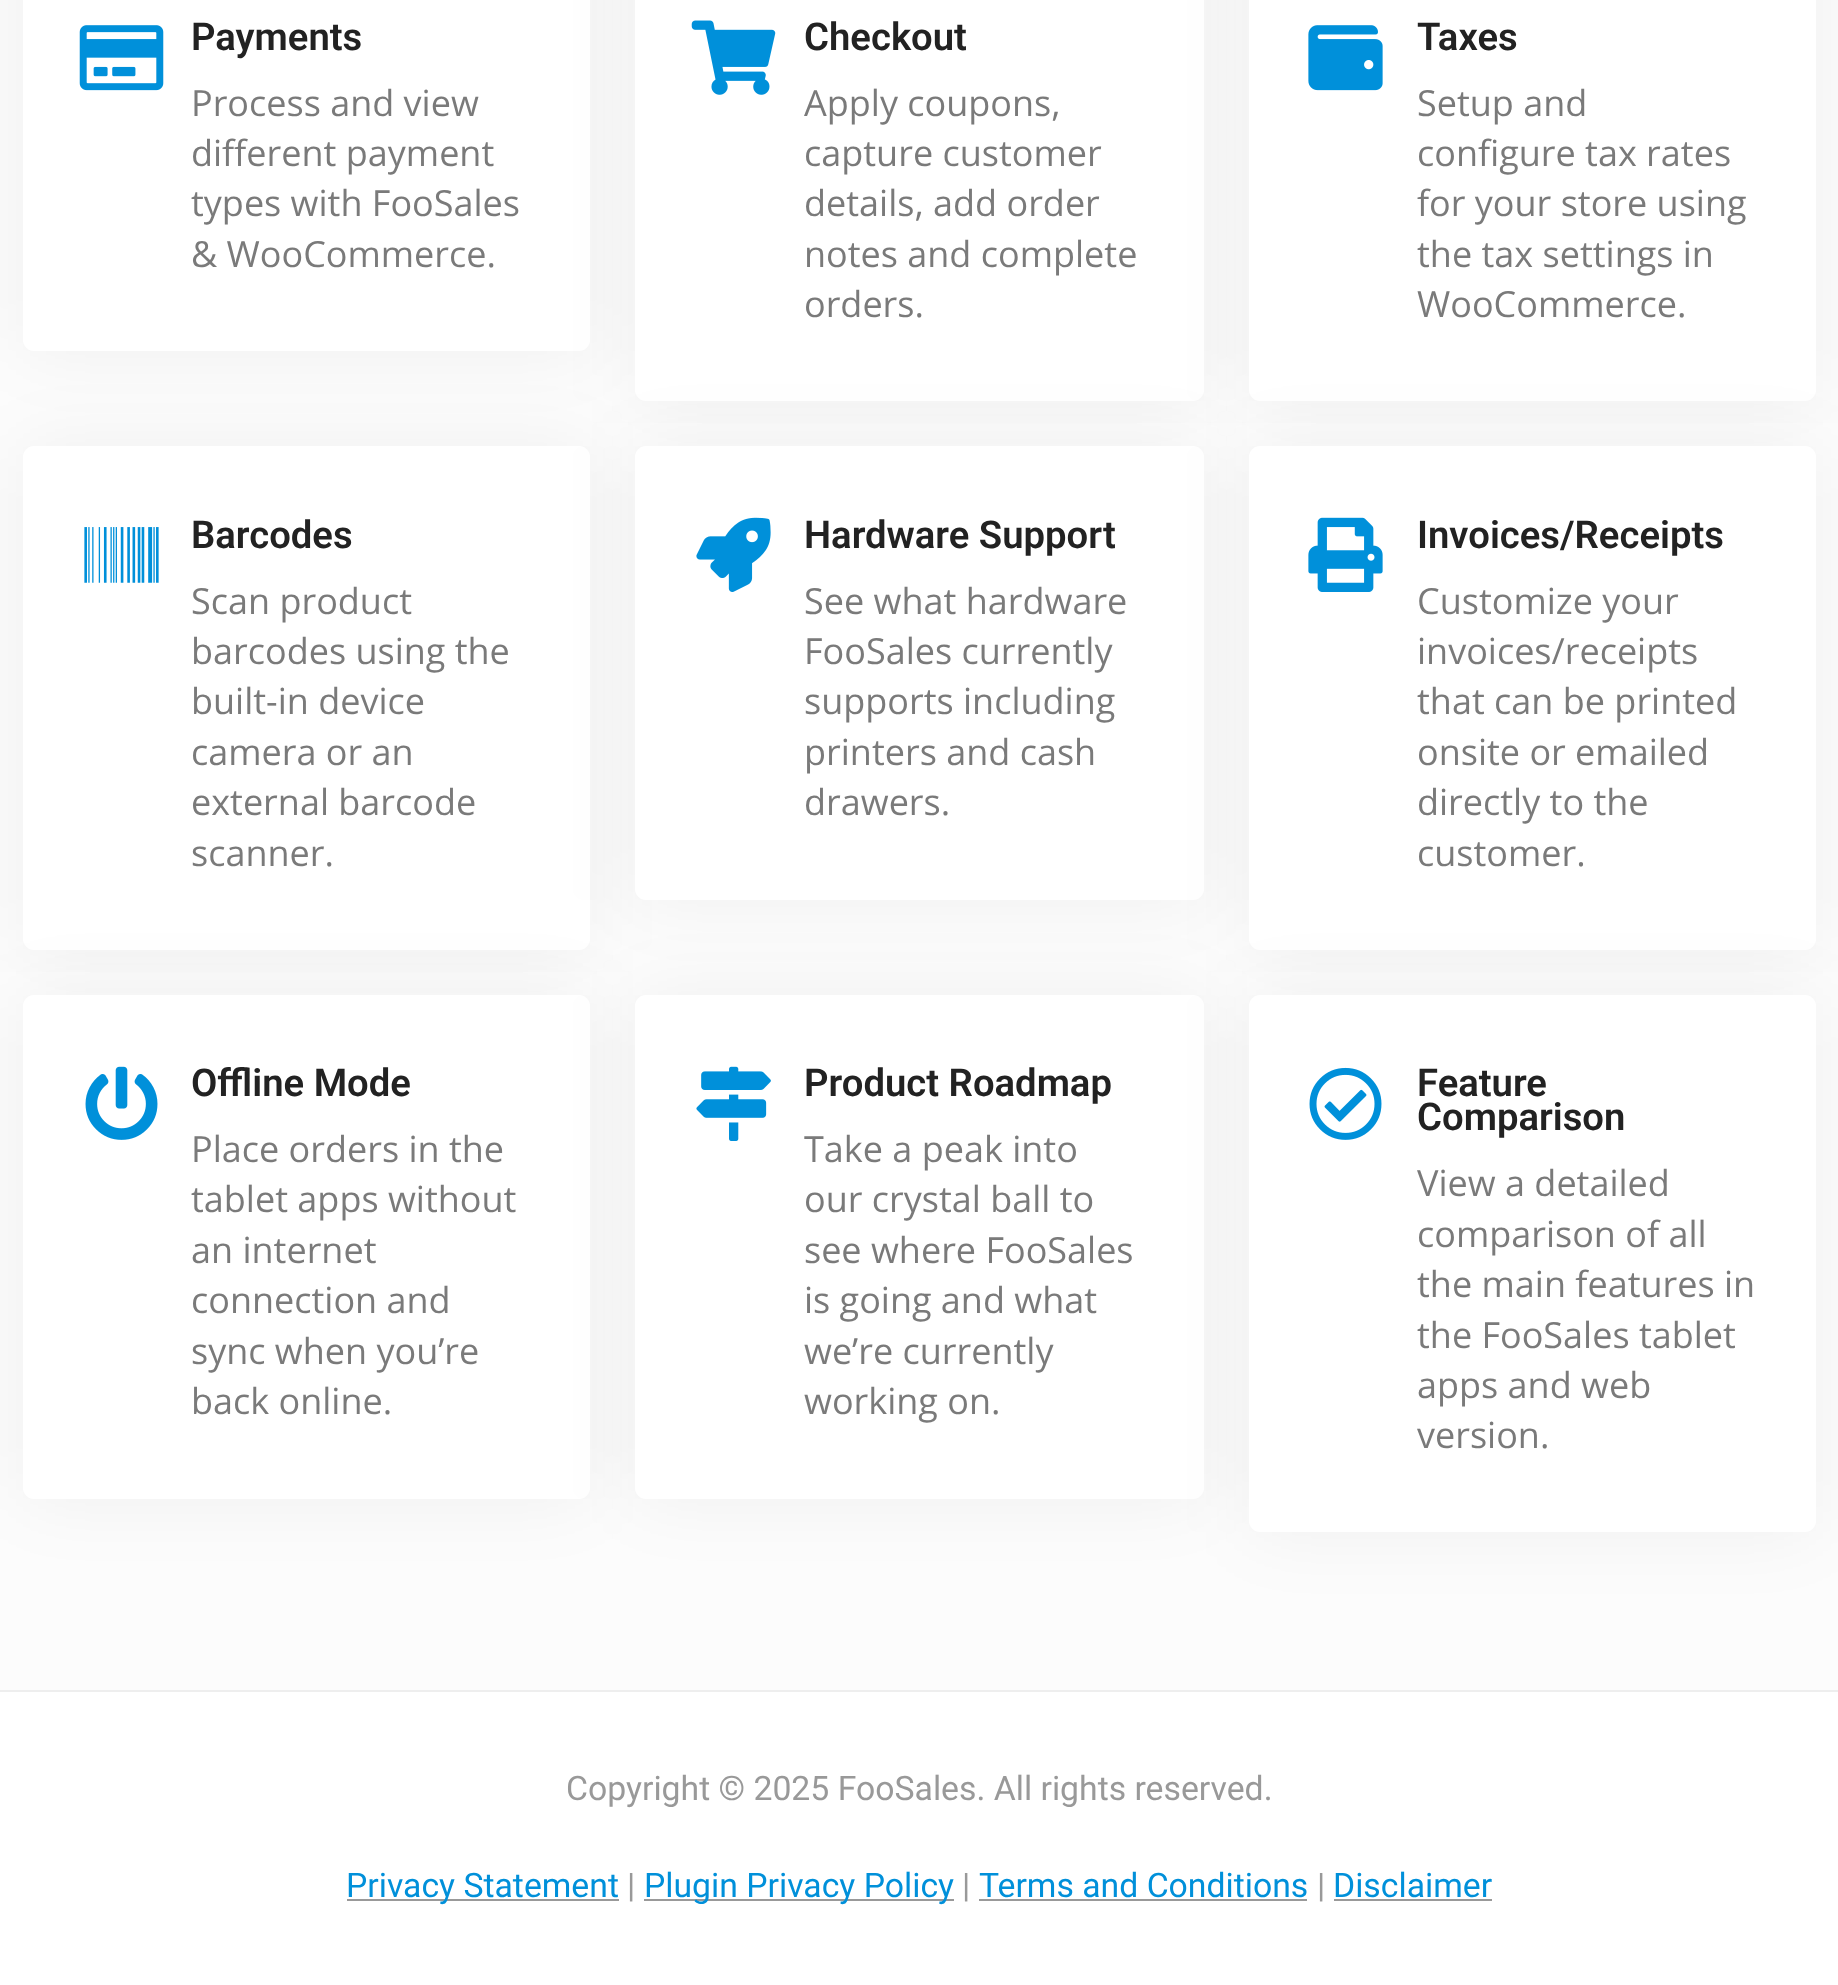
<!DOCTYPE html>
<meta charset="utf-8">
<style>body { margin: 0 } canvas { display: block }</style>
<canvas id="canvas" width="1838" height="1985"></canvas>
<img id="img1" src="images/1.png" hidden>
<img id="img2" src="images/2.png" hidden>
<img id="img3" src="images/3.png" hidden>
<img id="img4" src="images/4.png" hidden>
<img id="img5" src="images/5.png" hidden>
<img id="img6" src="images/6.png" hidden>
<img id="img7" src="images/7.png" hidden>
<img id="img8" src="images/8.png" hidden>
<img id="img9" src="images/9.png" hidden>
<script>
window.onload = function () {
    const canvas = document.getElementById('canvas');
    const context = canvas.getContext('2d');
    context.miterLimit = 4;
    context.fontKerning = 'normal';

    context.fillStyle = 'rgb(255, 255, 255)';
    context.fillRect(0, 0, 1838, 1985);
    context.fillStyle = 'rgb(252, 252, 252)';
    context.fillRect(0, 0, 1838, 423);
    context.fillStyle = 'rgba(0, 0, 0, 0.05)';
    context.filter = 'blur(37px)';
    context.beginPath();
    context.roundRect(23, -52, 567, 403, 11);
    context.fill();
    context.filter = 'none';
    context.fillStyle = 'rgb(255, 255, 255)';
    context.beginPath();
    context.roundRect(23, -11, 567, 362, 11);
    context.fill();
    context.drawImage(document.getElementById('img1'), 79, 25, 85, 66);
    context.fillStyle = 'rgba(0, 0, 0, 0.05)';
    context.filter = 'blur(37px)';
    context.beginPath();
    context.roundRect(635, -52, 569, 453, 11);
    context.fill();
    context.filter = 'none';
    context.fillStyle = 'rgb(255, 255, 255)';
    context.beginPath();
    context.roundRect(635, -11, 569, 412, 11);
    context.fill();
    context.drawImage(document.getElementById('img2'), 691, 20, 85, 75);
    context.fillStyle = 'rgba(0, 0, 0, 0.05)';
    context.filter = 'blur(37px)';
    context.beginPath();
    context.roundRect(1249, -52, 567, 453, 11);
    context.fill();
    context.filter = 'none';
    context.fillStyle = 'rgb(255, 255, 255)';
    context.beginPath();
    context.roundRect(1249, -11, 567, 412, 11);
    context.fill();
    context.drawImage(document.getElementById('img3'), 1308, 25, 75, 66);
    context.fillStyle = 'rgba(249, 249, 249, 0.5)';
    context.fillRect(0, 423, 1838, 549);
    context.fillStyle = 'rgba(0, 0, 0, 0.05)';
    context.filter = 'blur(37px)';
    context.beginPath();
    context.roundRect(23, 446, 567, 504, 11);
    context.fill();
    context.filter = 'none';
    context.fillStyle = 'rgb(255, 255, 255)';
    context.beginPath();
    context.roundRect(23, 446, 567, 504, 11);
    context.fill();
    context.drawImage(document.getElementById('img4'), 84, 527, 75, 56);
    context.fillStyle = 'rgba(0, 0, 0, 0.05)';
    context.filter = 'blur(37px)';
    context.beginPath();
    context.roundRect(635, 446, 569, 454, 11);
    context.fill();
    context.filter = 'none';
    context.fillStyle = 'rgb(255, 255, 255)';
    context.beginPath();
    context.roundRect(635, 446, 569, 454, 11);
    context.fill();
    context.drawImage(document.getElementById('img5'), 696, 517, 75, 75);
    context.fillStyle = 'rgba(0, 0, 0, 0.05)';
    context.filter = 'blur(37px)';
    context.beginPath();
    context.roundRect(1249, 446, 567, 504, 11);
    context.fill();
    context.filter = 'none';
    context.fillStyle = 'rgb(255, 255, 255)';
    context.beginPath();
    context.roundRect(1249, 446, 567, 504, 11);
    context.fill();
    context.drawImage(document.getElementById('img6'), 1308, 517, 75, 75);
    context.fillStyle = 'rgba(249, 249, 249, 0.5)';
    context.fillRect(0, 972, 1838, 718);
    context.fillStyle = 'rgba(0, 0, 0, 0.05)';
    context.filter = 'blur(37px)';
    context.beginPath();
    context.roundRect(23, 995, 567, 504, 11);
    context.fill();
    context.filter = 'none';
    context.fillStyle = 'rgb(255, 255, 255)';
    context.beginPath();
    context.roundRect(23, 995, 567, 504, 11);
    context.fill();
    context.drawImage(document.getElementById('img7'), 85, 1066, 73, 74);
    context.fillStyle = 'rgba(0, 0, 0, 0.05)';
    context.filter = 'blur(37px)';
    context.beginPath();
    context.roundRect(635, 995, 569, 504, 11);
    context.fill();
    context.filter = 'none';
    context.fillStyle = 'rgb(255, 255, 255)';
    context.beginPath();
    context.roundRect(635, 995, 569, 504, 11);
    context.fill();
    context.drawImage(document.getElementById('img8'), 696, 1066, 75, 75);
    context.fillStyle = 'rgba(0, 0, 0, 0.05)';
    context.filter = 'blur(37px)';
    context.beginPath();
    context.roundRect(1249, 995, 567, 537, 11);
    context.fill();
    context.filter = 'none';
    context.fillStyle = 'rgb(255, 255, 255)';
    context.beginPath();
    context.roundRect(1249, 995, 567, 537, 11);
    context.fill();
    context.drawImage(document.getElementById('img9'), 1309, 1067, 73, 73);
    context.fillStyle = 'rgb(238, 238, 238)';
    context.fillRect(0, 1690, 1838, 2);
    context.fillStyle = 'rgb(153, 153, 153)';
    context.fillRect(347, 1899, 272, 2);
    context.fillRect(644, 1899, 310, 2);
    context.fillRect(979, 1899, 328, 2);
    context.fillRect(1334, 1899, 158, 2);
    context.font = '600 38.25px Roboto';
    context.fillStyle = 'rgb(34, 34, 34)';
    context.fillText('Payments', 191, 50);
    context.font = '36px Open Sans';
    context.fillStyle = 'rgb(122, 122, 122)';
    context.fillText('Process and view', 191, 116);
    context.fillText('different payment', 191, 166);
    context.fillText('types with FooSales', 191, 216);
    context.fillText('& WooCommerce.', 191, 267);
    context.font = '600 38.25px Roboto';
    context.fillStyle = 'rgb(34, 34, 34)';
    context.fillText('Checkout', 804, 50);
    context.font = '36px Open Sans';
    context.fillStyle = 'rgb(122, 122, 122)';
    context.fillText('Apply coupons,', 804, 116);
    context.fillText('capture customer', 804, 166);
    context.fillText('details, add order', 804, 216);
    context.fillText('notes and complete', 804, 267);
    context.fillText('orders.', 804, 317);
    context.font = '600 38.25px Roboto';
    context.fillStyle = 'rgb(34, 34, 34)';
    context.fillText('Taxes', 1417, 50);
    context.font = '36px Open Sans';
    context.fillStyle = 'rgb(122, 122, 122)';
    context.fillText('Setup and', 1417, 116);
    context.fillText('configure tax rates', 1417, 166);
    context.fillText('for your store using', 1417, 216);
    context.fillText('the tax settings in', 1417, 267);
    context.fillText('WooCommerce.', 1417, 317);
    context.font = '600 38.25px Roboto';
    context.fillStyle = 'rgb(34, 34, 34)';
    context.fillText('Barcodes', 191, 548);
    context.font = '36px Open Sans';
    context.fillStyle = 'rgb(122, 122, 122)';
    context.fillText('Scan product', 191, 614);
    context.fillText('barcodes using the', 191, 664);
    context.fillText('built-in device', 191, 714);
    context.fillText('camera or an', 191, 765);
    context.fillText('external barcode', 191, 815);
    context.fillText('scanner.', 191, 866);
    context.font = '600 38.25px Roboto';
    context.fillStyle = 'rgb(34, 34, 34)';
    context.fillText('Hardware Support', 804, 548);
    context.font = '36px Open Sans';
    context.fillStyle = 'rgb(122, 122, 122)';
    context.fillText('See what hardware', 804, 614);
    context.fillText('FooSales currently', 804, 664);
    context.fillText('supports including', 804, 714);
    context.fillText('printers and cash', 804, 765);
    context.fillText('drawers.', 804, 815);
    context.font = '600 38.25px Roboto';
    context.fillStyle = 'rgb(34, 34, 34)';
    context.fillText('Invoices/Receipts', 1417, 548);
    context.font = '36px Open Sans';
    context.fillStyle = 'rgb(122, 122, 122)';
    context.fillText('Customize your', 1417, 614);
    context.fillText('invoices/receipts', 1417, 664);
    context.fillText('that can be printed', 1417, 714);
    context.fillText('onsite or emailed', 1417, 765);
    context.fillText('directly to the', 1417, 815);
    context.fillText('customer.', 1417, 866);
    context.font = '600 38.25px Roboto';
    context.fillStyle = 'rgb(34, 34, 34)';
    context.fillText('Offline Mode', 191, 1096);
    context.font = '36px Open Sans';
    context.fillStyle = 'rgb(122, 122, 122)';
    context.fillText('Place orders in the', 191, 1162);
    context.fillText('tablet apps without', 191, 1212);
    context.fillText('an internet', 191, 1263);
    context.fillText('connection and', 191, 1313);
    context.fillText('sync when you’re', 191, 1364);
    context.fillText('back online.', 191, 1414);
    context.font = '600 38.25px Roboto';
    context.fillStyle = 'rgb(34, 34, 34)';
    context.fillText('Product Roadmap', 804, 1096);
    context.font = '36px Open Sans';
    context.fillStyle = 'rgb(122, 122, 122)';
    context.fillText('Take a peak into', 804, 1162);
    context.fillText('our crystal ball to', 804, 1212);
    context.fillText('see where FooSales', 804, 1263);
    context.fillText('is going and what', 804, 1313);
    context.fillText('we’re currently', 804, 1364);
    context.fillText('working on.', 804, 1414);
    context.font = '600 38.25px Roboto';
    context.fillStyle = 'rgb(34, 34, 34)';
    context.fillText('Feature', 1417, 1096);
    context.fillText('Comparison', 1417, 1130);
    context.font = '36px Open Sans';
    context.fillStyle = 'rgb(122, 122, 122)';
    context.fillText('View a detailed', 1417, 1196);
    context.fillText('comparison of all', 1417, 1247);
    context.fillText('the main features in', 1417, 1297);
    context.fillText('the FooSales tablet', 1417, 1348);
    context.fillText('apps and web', 1417, 1398);
    context.fillText('version.', 1417, 1448);
    context.font = '33.75px Roboto';
    context.fillStyle = 'rgb(153, 153, 153)';
    context.fillText('Copyright © 2025 FooSales. All rights reserved.', 566, 1800);
    context.fillStyle = 'rgb(0, 144, 218)';
    context.fillText('Privacy Statement', 346, 1897);
    context.fillStyle = 'rgb(153, 153, 153)';
    context.fillText('|', 627, 1897);
    context.fillStyle = 'rgb(0, 144, 218)';
    context.fillText('Plugin Privacy Policy', 644, 1897);
    context.fillStyle = 'rgb(153, 153, 153)';
    context.fillText('|', 962, 1897);
    context.fillStyle = 'rgb(0, 144, 218)';
    context.fillText('Terms and Conditions', 979, 1897);
    context.fillStyle = 'rgb(153, 153, 153)';
    context.fillText('|', 1317, 1897);
    context.fillStyle = 'rgb(0, 144, 218)';
    context.fillText('Disclaimer', 1333, 1897);
};
</script>
